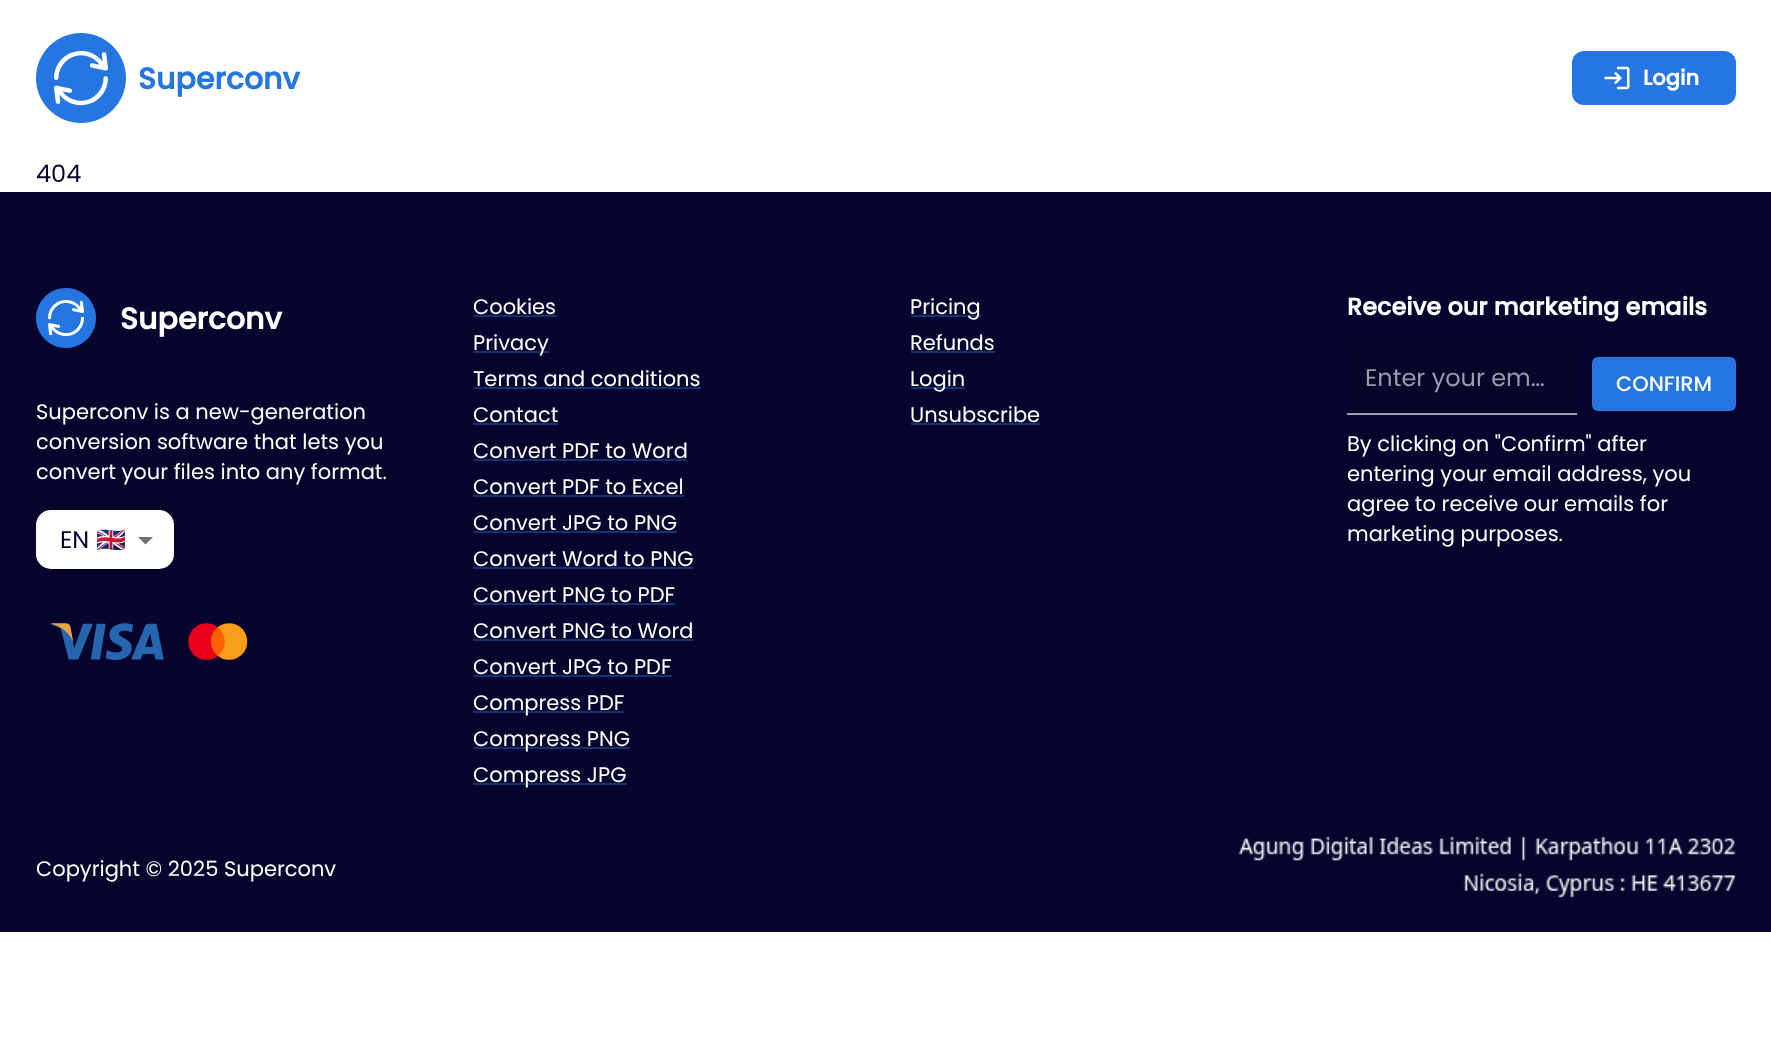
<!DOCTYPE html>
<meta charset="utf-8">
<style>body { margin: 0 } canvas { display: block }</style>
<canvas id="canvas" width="1771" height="1050"></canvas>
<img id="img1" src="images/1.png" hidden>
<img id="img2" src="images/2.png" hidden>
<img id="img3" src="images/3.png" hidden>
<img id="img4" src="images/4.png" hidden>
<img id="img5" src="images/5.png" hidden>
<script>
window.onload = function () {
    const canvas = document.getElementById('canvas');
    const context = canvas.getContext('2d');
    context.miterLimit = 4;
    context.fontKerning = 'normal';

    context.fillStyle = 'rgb(255, 255, 255)';
    context.fillRect(0, 0, 1771, 1050);
    context.drawImage(document.getElementById('img1'), 36, 33, 90, 90);
    context.fillStyle = 'rgb(37, 118, 224)';
    context.beginPath();
    context.roundRect(1572, 51, 164, 54, 12);
    context.fill();
    context.drawImage(document.getElementById('img2'), 1604, 66, 26, 24);
    context.fillStyle = 'rgb(7, 5, 45)';
    context.fillRect(0, 192, 1771, 740);
    context.fillStyle = 'rgb(156, 155, 171)';
    context.fillRect(1347, 414, 230, 1);
    context.drawImage(document.getElementById('img3'), 36, 288, 60, 60);
    context.fillStyle = 'rgb(255, 255, 255)';
    context.beginPath();
    context.roundRect(36, 510, 138, 59, 15);
    context.fill();
    context.fillStyle = 'rgb(117, 117, 117)';
    context.beginPath();
    context.moveTo(138, 537);
    context.lineTo(145.5, 544.5);
    context.lineTo(153, 537);
    context.closePath();
    context.fill();
    context.drawImage(document.getElementById('img4'), 51, 623, 197, 37);
    context.fillStyle = 'rgb(19, 50, 117)';
    context.fillRect(473, 315, 84, 2);
    context.fillRect(473, 351, 76, 2);
    context.fillRect(473, 387, 228, 2);
    context.fillRect(473, 423, 85, 2);
    context.fillRect(473, 459, 214, 2);
    context.fillRect(473, 495, 211, 2);
    context.fillRect(473, 531, 204, 2);
    context.fillRect(473, 567, 220, 2);
    context.fillRect(473, 603, 202, 2);
    context.fillRect(473, 639, 220, 2);
    context.fillRect(473, 675, 199, 2);
    context.fillRect(473, 711, 151, 2);
    context.fillRect(473, 747, 157, 2);
    context.fillRect(473, 783, 154, 2);
    context.fillRect(911, 315, 70, 2);
    context.fillRect(911, 351, 84, 2);
    context.fillRect(911, 387, 54, 2);
    context.fillRect(911, 423, 129, 2);
    context.fillStyle = 'rgb(7, 5, 42)';
    context.beginPath();
    context.roundRect(1347, 342, 230, 72, [6, 6, 0, 0]);
    context.fill();
    context.fillStyle = 'rgb(156, 155, 170)';
    context.fillRect(1347, 413, 230, 1);
    context.fillStyle = 'rgb(37, 118, 224)';
    context.beginPath();
    context.roundRect(1592, 357, 144, 54, 6);
    context.fill();
    context.fillStyle = 'rgb(6, 5, 41)';
    context.fillRect(36, 816, 1700, 2);
    context.drawImage(document.getElementById('img5'), 1238, 836, 498, 62);
    context.font = 'bold 30px Poppins';
    context.fillStyle = 'rgb(37, 118, 224)';
    context.fillText('Superconv', 138, 89);
    context.font = 'bold 21px Poppins';
    context.fillStyle = 'rgb(255, 255, 255)';
    context.fillText('Login', 1643, 85);
    context.font = '24px Poppins';
    context.fillStyle = 'rgb(7, 5, 45)';
    context.fillText('404', 36, 182);
    context.font = 'bold 30px Poppins';
    context.fillStyle = 'rgb(255, 255, 255)';
    context.fillText('Superconv', 120, 329);
    context.font = '21px Poppins';
    context.fillText('Superconv is a new-generation', 36, 419);
    context.fillText('conversion software that lets you', 36, 449);
    context.fillText('convert your files into any format.', 36, 479);
    context.font = '24px Poppins';
    context.fillStyle = 'rgb(7, 5, 45)';
    context.fillText('EN', 60, 548);
    context.font = '24px Noto Color Emoji';
    context.fillText('🇬🇧', 96, 548);
    context.font = '21px Poppins';
    context.fillStyle = 'rgb(255, 255, 255)';
    context.fillText('Cookies', 473, 314);
    context.fillText('Privacy', 473, 350);
    context.fillText('Terms and conditions', 473, 386);
    context.fillText('Contact', 473, 422);
    context.fillText('Convert PDF to Word', 473, 458);
    context.fillText('Convert PDF to Excel', 473, 494);
    context.fillText('Convert JPG to PNG', 473, 530);
    context.fillText('Convert Word to PNG', 473, 566);
    context.fillText('Convert PNG to PDF', 473, 602);
    context.fillText('Convert PNG to Word', 473, 638);
    context.fillText('Convert JPG to PDF', 473, 674);
    context.fillText('Compress PDF', 473, 710);
    context.fillText('Compress PNG', 473, 746);
    context.fillText('Compress JPG', 473, 782);
    context.fillText('Pricing', 910, 314);
    context.fillText('Refunds', 910, 350);
    context.fillText('Login', 910, 386);
    context.fillText('Unsubscribe', 910, 422);
    context.font = 'bold 24px Poppins';
    context.fillText('Receive our marketing emails', 1347, 315);
    context.font = '24px Poppins';
    context.fillStyle = 'rgb(156, 155, 170)';
    context.fillText('Enter your em…', 1365, 386);
    context.font = '500 21px Poppins';
    context.fillStyle = 'rgb(255, 255, 255)';
    context.fillText('CONFIRM', 1616, 391);
    context.font = '21px Poppins';
    context.fillText('By clicking on "Confirm" after', 1347, 451);
    context.fillText('entering your email address, you', 1347, 481);
    context.fillText('agree to receive our emails for', 1347, 511);
    context.fillText('marketing purposes.', 1347, 541);
    context.fillText('Copyright © 2025 Superconv', 36, 876);
};
</script>
